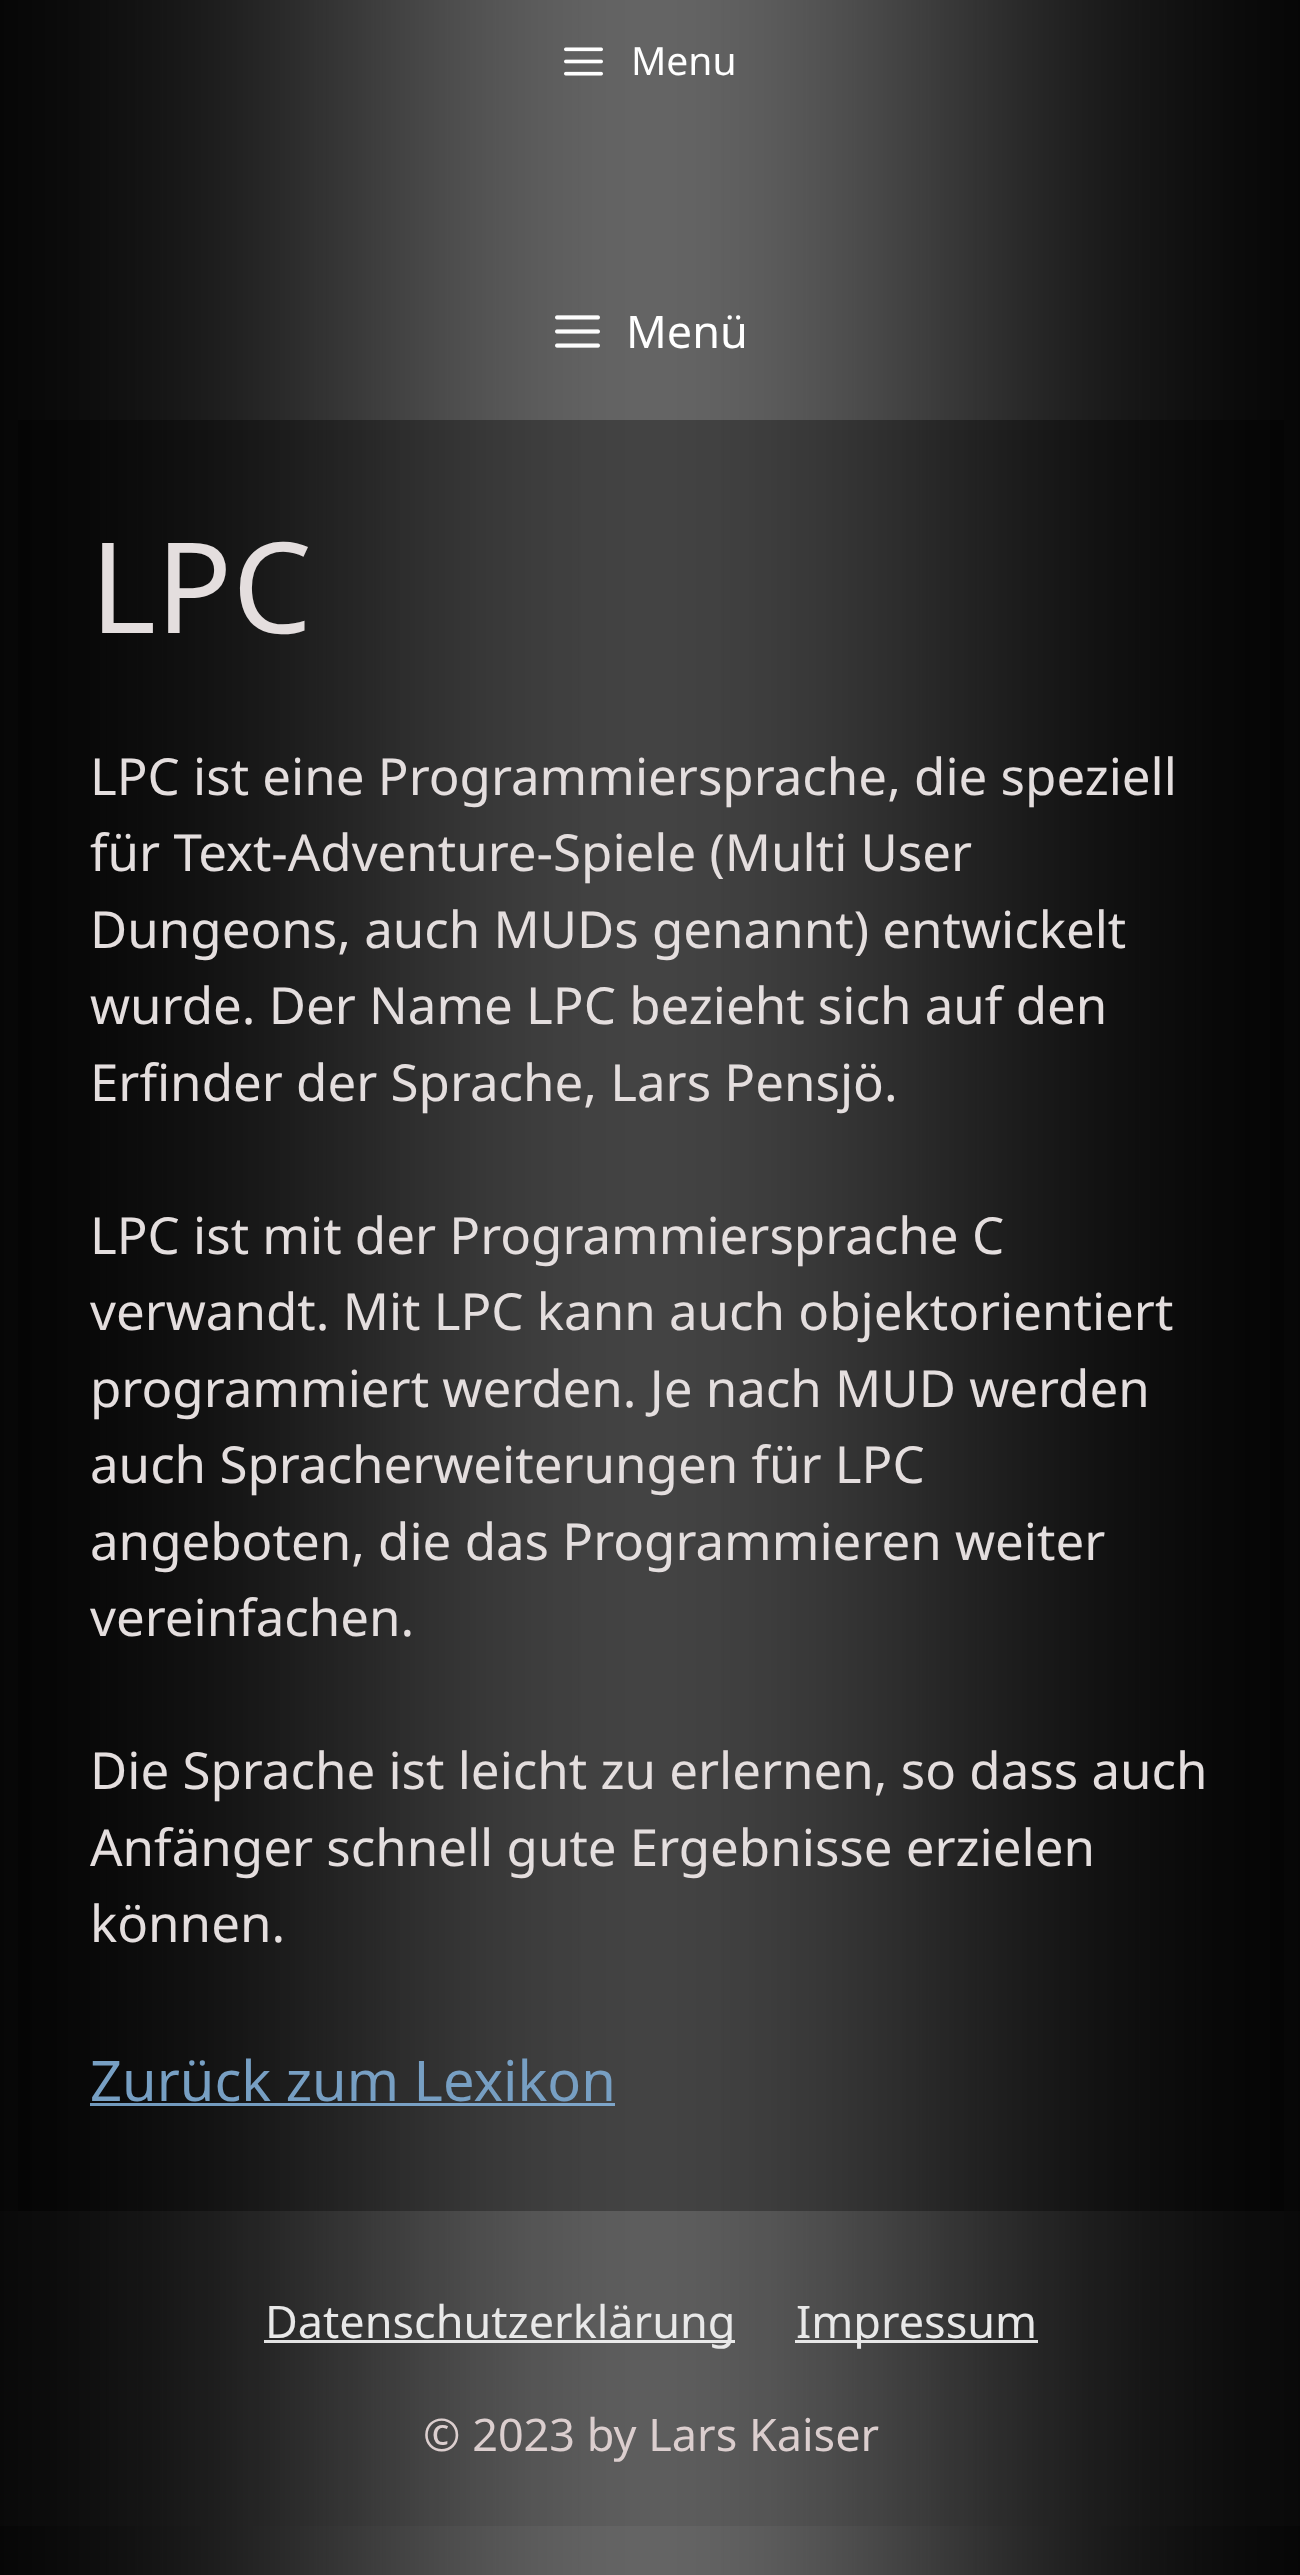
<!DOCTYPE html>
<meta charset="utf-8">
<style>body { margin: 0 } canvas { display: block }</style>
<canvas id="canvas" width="1300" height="2575"></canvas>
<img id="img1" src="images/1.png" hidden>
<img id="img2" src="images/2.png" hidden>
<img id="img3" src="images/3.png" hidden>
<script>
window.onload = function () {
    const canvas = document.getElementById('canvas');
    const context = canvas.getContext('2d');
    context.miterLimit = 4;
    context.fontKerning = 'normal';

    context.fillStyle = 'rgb(255, 255, 255)';
    context.fillRect(0, 0, 1300, 2575);
    context.drawImage(document.getElementById('img1'), 0, 0, 1300, 2575);
    context.drawImage(document.getElementById('img2'), 564, 47, 39, 29);
    context.drawImage(document.getElementById('img3'), 555, 315, 45, 33);
    context.fillStyle = 'rgba(0, 0, 0, 0.33)';
    context.fillRect(18, 420, 1266, 1791);
    context.fillStyle = 'rgba(142, 193, 239, 0.78)';
    context.fillRect(90, 2103, 525, 3);
    context.fillStyle = 'rgba(33, 33, 33, 0.11)';
    context.fillRect(0, 2211, 1300, 315);
    context.fillStyle = 'rgba(255, 255, 255, 0.87)';
    context.fillRect(264, 2340, 471, 3);
    context.fillRect(795, 2340, 243, 3);
    context.font = '39px Noto Sans';
    context.fillStyle = 'rgb(255, 255, 255)';
    context.fillText('Menu', 631, 75);
    context.font = '45px Noto Sans';
    context.fillText('Menü', 626, 348);
    context.font = '126px Noto Sans';
    context.fillStyle = 'rgb(228, 222, 222)';
    context.fillText('LPC', 90, 633);
    context.font = '51px Noto Sans';
    context.fillText('LPC ist eine Programmiersprache, die speziell', 90, 795);
    context.fillText('für Text-Adventure-Spiele (Multi User', 90, 871);
    context.fillText('Dungeons, auch MUDs genannt) entwickelt', 90, 948);
    context.fillText('wurde. Der Name LPC bezieht sich auf den', 90, 1024);
    context.fillText('Erfinder der Sprache, Lars Pensjö.', 90, 1101);
    context.fillText('LPC ist mit der Programmiersprache C', 90, 1254);
    context.fillText('verwandt. Mit LPC kann auch objektorientiert', 90, 1330);
    context.fillText('programmiert werden. Je nach MUD werden', 90, 1407);
    context.fillText('auch Spracherweiterungen für LPC', 90, 1483);
    context.fillText('angeboten, die das Programmieren weiter', 90, 1560);
    context.fillText('vereinfachen.', 90, 1636);
    context.fillText('Die Sprache ist leicht zu erlernen, so dass auch', 90, 1789);
    context.fillText('Anfänger schnell gute Ergebnisse erzielen', 90, 1866);
    context.fillText('können.', 90, 1942);
    context.font = '56px Noto Sans';
    context.fillStyle = 'rgb(119, 159, 195)';
    context.fillText('Zurück zum Lexikon', 90, 2101);
    context.font = '45px Noto Sans';
    context.fillStyle = 'rgb(232, 232, 232)';
    context.fillText('Datenschutzerklärung', 265, 2338);
    context.fillText('Impressum', 796, 2338);
    context.fillStyle = 'rgb(219, 206, 206)';
    context.fillText('© 2023 by Lars Kaiser', 423, 2451);
};
</script>
